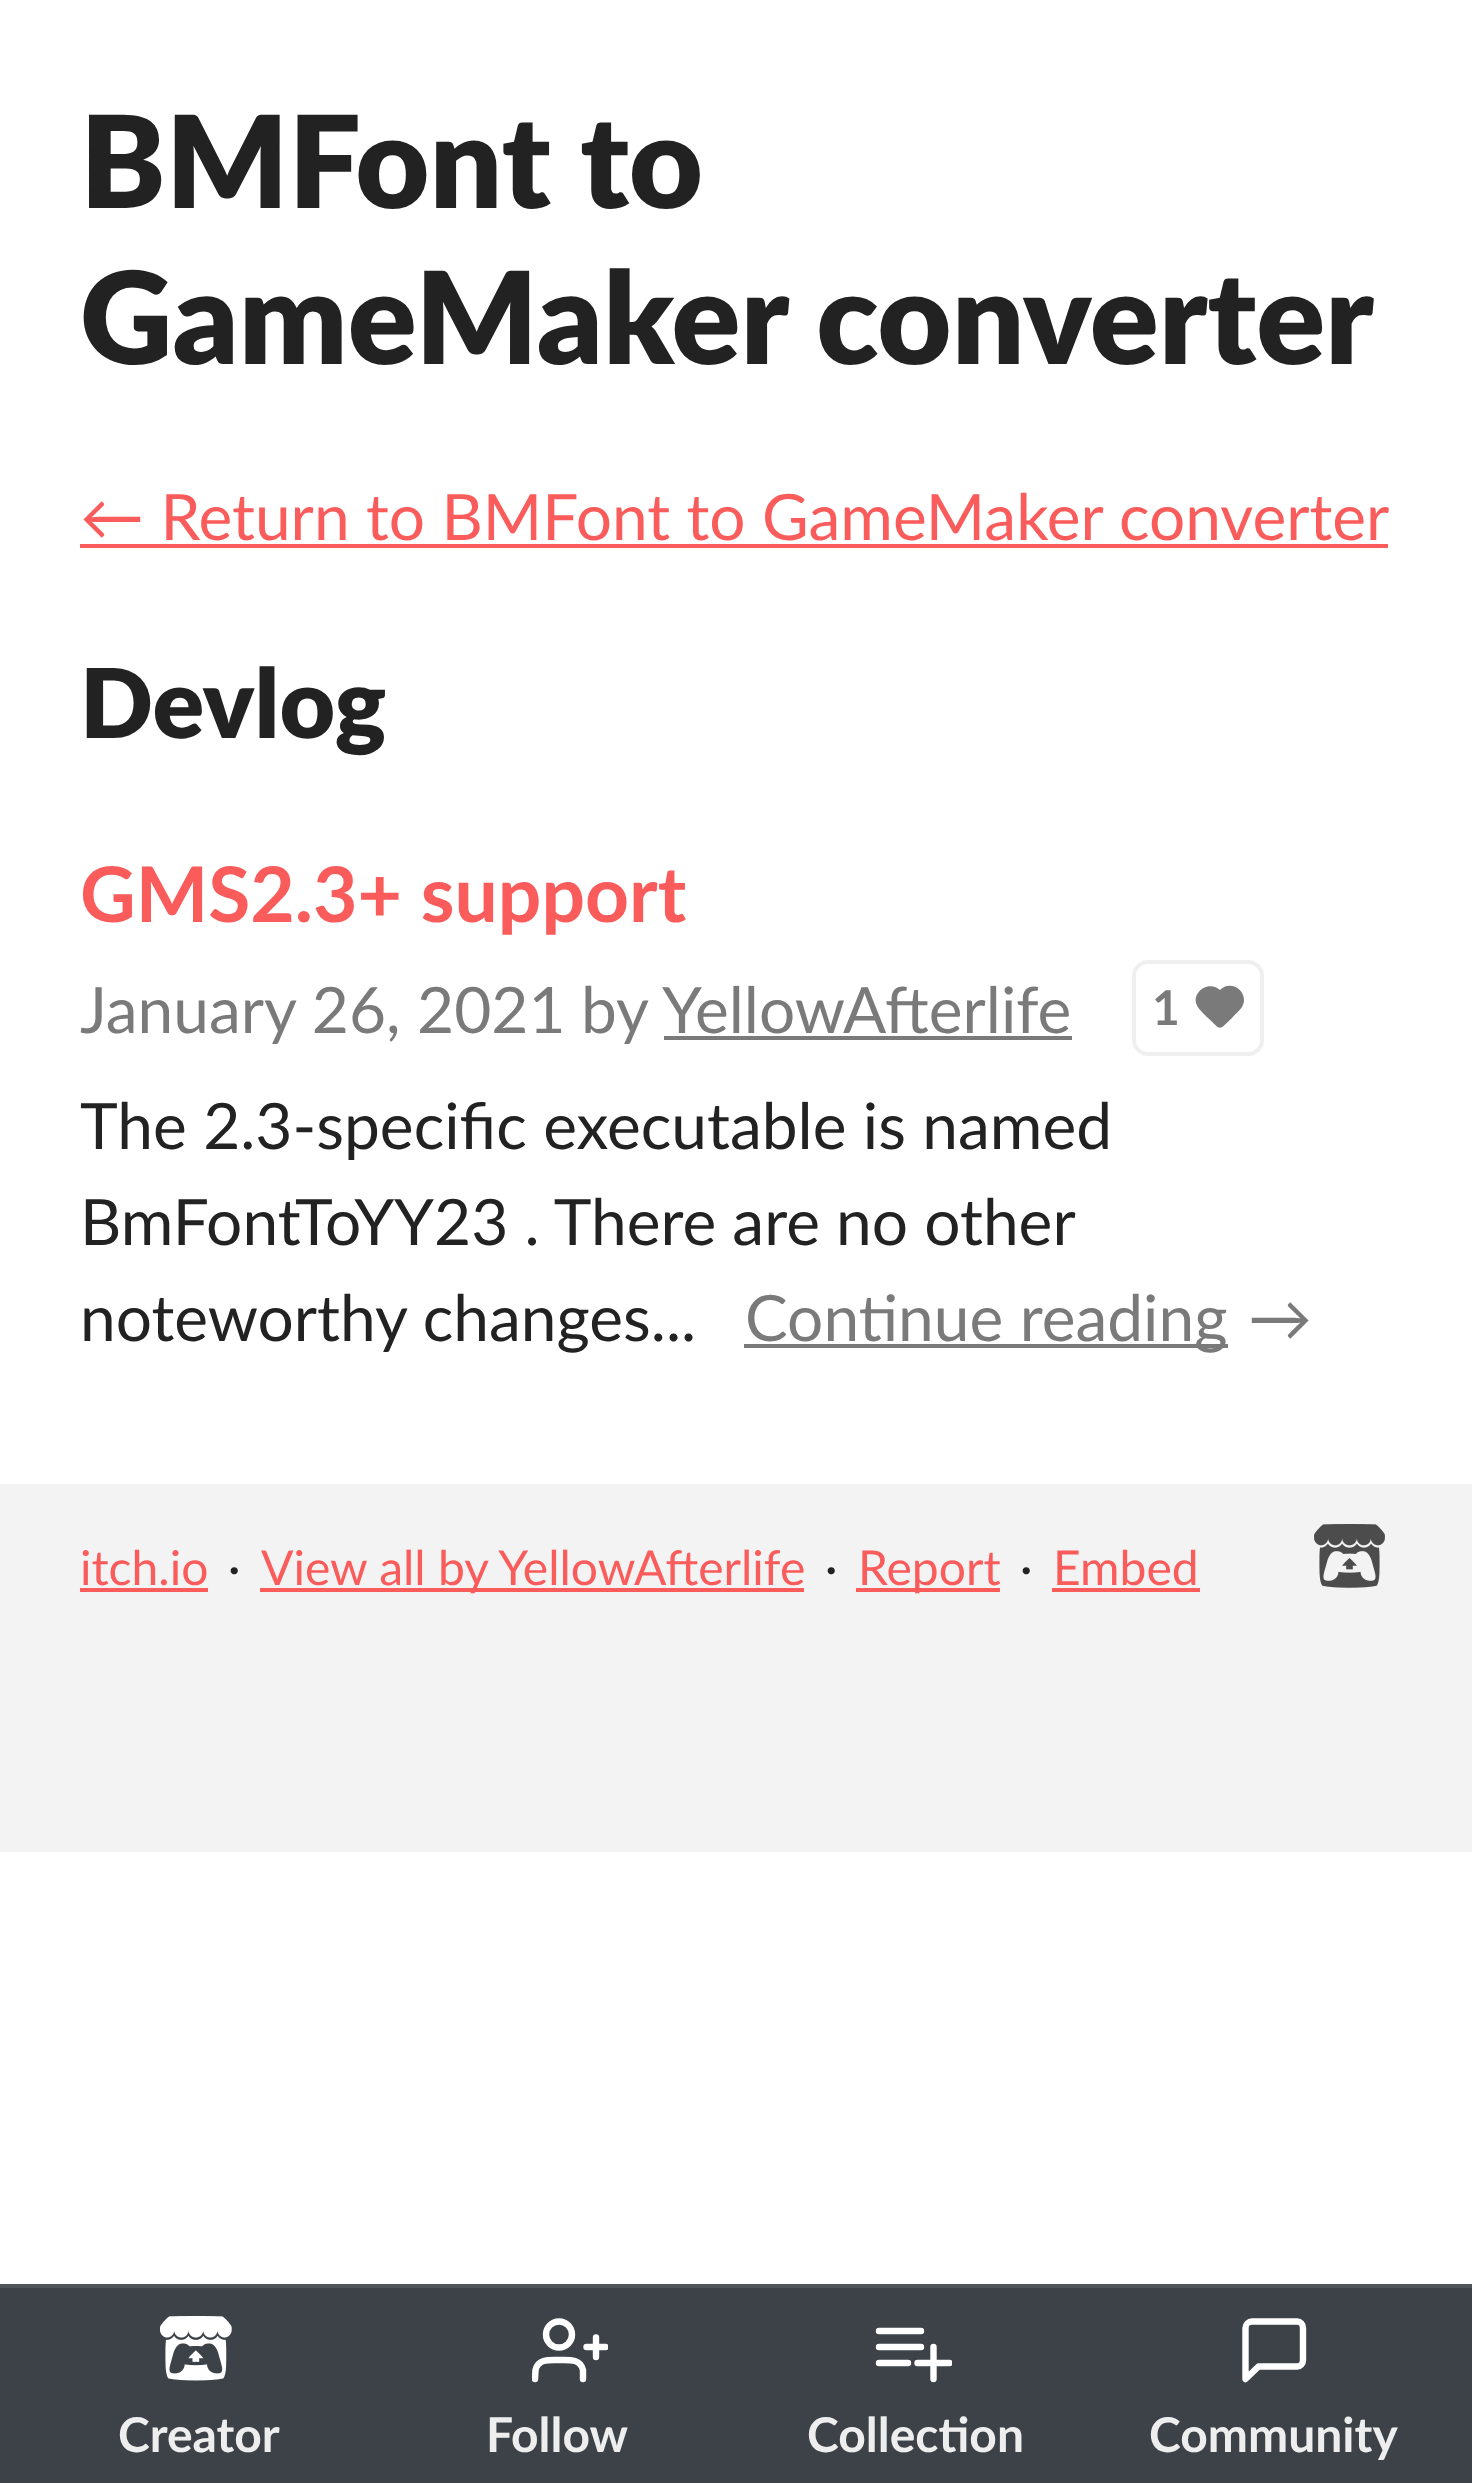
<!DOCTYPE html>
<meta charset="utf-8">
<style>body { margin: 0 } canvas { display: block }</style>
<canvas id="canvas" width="1472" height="2483"></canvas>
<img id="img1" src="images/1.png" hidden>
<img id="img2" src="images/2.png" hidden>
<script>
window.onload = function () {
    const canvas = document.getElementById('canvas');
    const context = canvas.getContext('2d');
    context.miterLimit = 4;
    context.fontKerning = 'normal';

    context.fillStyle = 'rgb(255, 255, 255)';
    context.fillRect(0, 0, 1472, 2483);
    context.fillStyle = 'rgb(250, 92, 92)';
    context.fillRect(80, 544, 1308, 4);
    context.fillStyle = 'rgb(122, 122, 122)';
    context.fillRect(664, 1036, 408, 4);
    context.beginPath();
    context.roundRect(1134, 962, 128, 92, 14);
    context.strokeStyle = 'rgb(239, 239, 239)';
    context.lineWidth = 4;
    context.stroke();
    context.beginPath();
    context.moveTo(1244, 1000);
    context.bezierCurveTo(1244, 1008, 1237, 1012, 1232, 1018);
    context.bezierCurveTo(1218, 1031, 1222, 1031, 1208, 1018);
    context.bezierCurveTo(1201, 1011, 1191, 1003, 1198, 993);
    context.bezierCurveTo(1203, 985, 1214, 984, 1220, 990);
    context.bezierCurveTo(1228, 981, 1244, 987, 1244, 1000);
    context.closePath();
    context.fill();
    context.fillRect(744, 1344, 484, 4);
    context.fillStyle = 'rgb(243, 243, 243)';
    context.fillRect(0, 1484, 1472, 368);
    context.fillStyle = 'rgb(250, 92, 92)';
    context.fillRect(80, 1588, 128, 4);
    context.fillRect(260, 1588, 544, 4);
    context.fillRect(856, 1588, 144, 4);
    context.fillRect(1052, 1588, 148, 4);
    context.drawImage(document.getElementById('img1'), 1314, 1524, 71, 64);
    context.fillStyle = 'rgb(61, 66, 73)';
    context.fillRect(0, 2288, 1472, 195);
    context.fillStyle = 'rgb(80, 85, 91)';
    context.fillRect(0, 2284, 1472, 4);
    context.drawImage(document.getElementById('img2'), 160, 2316, 72, 65);
    context.save();
    context.beginPath();
    context.rect(532, 2312, 76, 76);
    context.clip();
    context.beginPath();
    context.moveTo(583, 2379);
    context.lineTo(583, 2370);
    context.bezierCurveTo(580.5, 2358.5, 568.5, 2360, 559, 2360);
    context.bezierCurveTo(550, 2360, 538, 2358.5, 535.5, 2370);
    context.lineTo(535, 2379);
    context.strokeStyle = 'rgb(255, 255, 255)';
    context.lineWidth = 6.4;
    context.lineCap = 'round';
    context.lineJoin = 'round';
    context.stroke();
    context.restore();
    context.beginPath();
    context.arc(559, 2334.5, 13, 0, 2 * Math.PI);
    context.strokeStyle = 'rgb(255, 255, 255)';
    context.lineWidth = 6.4;
    context.stroke();
    context.beginPath();
    context.moveTo(596, 2337.5);
    context.lineTo(596, 2357);
    context.lineCap = 'round';
    context.lineJoin = 'round';
    context.stroke();
    context.save();
    context.beginPath();
    context.rect(532, 2312, 76, 76);
    context.clip();
    context.beginPath();
    context.moveTo(605.5, 2347);
    context.lineTo(586.5, 2347);
    context.stroke();
    context.restore();
    context.beginPath();
    context.moveTo(879, 2331);
    context.lineTo(921, 2331);
    context.moveTo(879, 2347);
    context.lineTo(921, 2347);
    context.moveTo(879, 2363);
    context.lineTo(908, 2363);
    context.moveTo(933.5, 2347);
    context.lineTo(933.5, 2379);
    context.stroke();
    context.save();
    context.beginPath();
    context.rect(876, 2312, 76, 76);
    context.clip();
    context.beginPath();
    context.moveTo(917.5, 2363);
    context.lineTo(949.5, 2363);
    context.stroke();
    context.restore();
    context.beginPath();
    context.moveTo(1303, 2360);
    context.bezierCurveTo(1303, 2363.5, 1300.5, 2366.5, 1297, 2366.5);
    context.lineTo(1258.5, 2366.5);
    context.lineTo(1245.5, 2379);
    context.lineTo(1245.5, 2328);
    context.bezierCurveTo(1245.5, 2324.5, 1248.5, 2321.5, 1252, 2321.5);
    context.lineTo(1297, 2321.5);
    context.bezierCurveTo(1300.5, 2321.5, 1303, 2324.5, 1303, 2328);
    context.closePath();
    context.stroke();
    context.font = '900 128px Lato';
    context.fillStyle = 'rgb(34, 34, 34)';
    context.fillText('BMFont to', 80, 208);
    context.fillText('GameMaker converter', 80, 364);
    context.font = '64px Lato';
    context.fillStyle = 'rgb(250, 92, 92)';
    context.fillText('← Return to BMFont to GameMaker converter', 80, 540);
    context.font = '900 96px Lato';
    context.fillStyle = 'rgb(34, 34, 34)';
    context.fillText('Devlog', 80, 738);
    context.font = 'bold 76.75px Lato';
    context.fillStyle = 'rgb(250, 92, 92)';
    context.fillText('GMS2.3+ support', 80, 922);
    context.font = '64px Lato';
    context.fillStyle = 'rgb(122, 122, 122)';
    context.fillText('January 26, 2021', 80, 1033);
    context.fillText('by', 581, 1033);
    context.fillText('YellowAfterlife', 662, 1033);
    context.font = 'bold 48px Lato';
    context.fillText('1', 1152, 1025);
    context.font = '64px Lato';
    context.fillStyle = 'rgb(34, 34, 34)';
    context.fillText('The 2.3-specific executable is named', 80, 1149);
    context.wordSpacing = '-0.25px';
    context.fillText('BmFontToYY23 . There are no other', 80, 1245);
    context.wordSpacing = '0px';
    context.fillText('noteworthy changes...', 80, 1341);
    context.fillStyle = 'rgb(122, 122, 122)';
    context.fillText('Continue reading', 745, 1341);
    context.fillText('→', 1248, 1341);
    context.font = '48px Lato';
    context.fillStyle = 'rgb(250, 92, 92)';
    context.fillText('itch.io', 80, 1585);
    context.fillStyle = 'rgb(34, 34, 34)';
    context.fillText('·', 228, 1585);
    context.fillStyle = 'rgb(250, 92, 92)';
    context.fillText('View all by YellowAfterlife', 261, 1585);
    context.fillStyle = 'rgb(34, 34, 34)';
    context.fillText('·', 825, 1585);
    context.fillStyle = 'rgb(250, 92, 92)';
    context.fillText('Report', 858, 1585);
    context.fillStyle = 'rgb(34, 34, 34)';
    context.fillText('·', 1020, 1585);
    context.fillStyle = 'rgb(250, 92, 92)';
    context.fillText('Embed', 1053, 1585);
    context.font = 'bold 48px Lato';
    context.fillStyle = 'rgb(238, 238, 238)';
    context.fillText('Creator', 118, 2452);
    context.fillText('Follow', 486, 2452);
    context.fillText('Collection', 807, 2452);
    context.fillText('Community', 1149, 2452);
};
</script>
